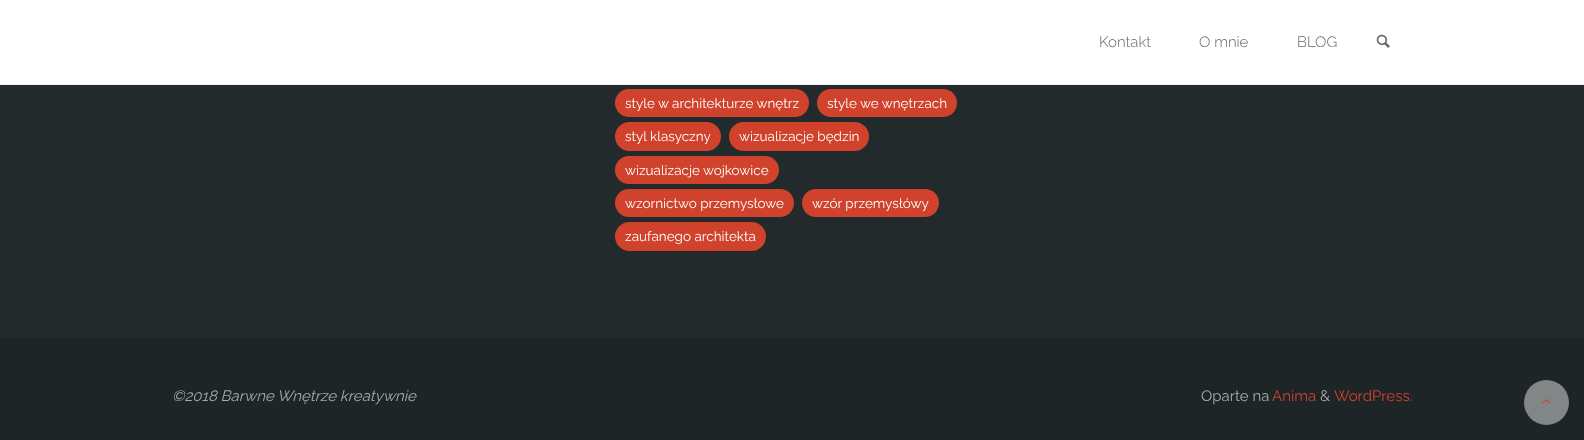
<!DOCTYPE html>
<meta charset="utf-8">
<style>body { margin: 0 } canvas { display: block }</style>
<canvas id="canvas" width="1584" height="440"></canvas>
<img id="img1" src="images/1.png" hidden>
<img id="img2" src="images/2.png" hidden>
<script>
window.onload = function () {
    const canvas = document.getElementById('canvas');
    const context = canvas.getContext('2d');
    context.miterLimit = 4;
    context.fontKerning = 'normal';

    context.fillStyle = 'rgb(34, 42, 44)';
    context.fillRect(0, 0, 1584, 440);
    context.fillStyle = 'rgb(255, 255, 255)';
    context.fillRect(0, 0, 1584, 84);
    context.fillStyle = 'rgb(242, 242, 242)';
    context.fillRect(0, 84, 1584, 1);
    context.drawImage(document.getElementById('img1'), 1376, 34, 14, 14);
    context.fillStyle = 'rgb(208, 66, 44)';
    context.beginPath();
    context.roundRect(615, 89, 194, 28, 14);
    context.fill();
    context.beginPath();
    context.roundRect(817, 89, 140, 28, 14);
    context.fill();
    context.beginPath();
    context.roundRect(615, 122, 106, 29, 14.5);
    context.fill();
    context.beginPath();
    context.roundRect(729, 122, 140, 29, 14.5);
    context.fill();
    context.beginPath();
    context.roundRect(615, 156, 164, 28, 14);
    context.fill();
    context.beginPath();
    context.roundRect(615, 189, 179, 28, 14);
    context.fill();
    context.beginPath();
    context.roundRect(802, 189, 137, 28, 14);
    context.fill();
    context.beginPath();
    context.roundRect(615, 222, 151, 29, 14.5);
    context.fill();
    context.fillStyle = 'rgb(29, 37, 39)';
    context.fillRect(0, 338, 1584, 102);
    context.fillStyle = 'rgb(130, 134, 135)';
    context.beginPath();
    context.arc(1546.5, 402.5, 22.5, 0, 2 * Math.PI);
    context.fill();
    context.drawImage(document.getElementById('img2'), 1542, 399, 8, 5);
    context.font = '300 15px Raleway';
    context.fillStyle = 'rgb(99, 102, 107)';
    context.fillText('Kontakt', 1099, 47);
    context.fillText('O mnie', 1199, 47);
    context.fillText('BLOG', 1297, 47);
    context.font = '13.5px Raleway';
    context.fillStyle = 'rgb(255, 255, 255)';
    context.fillText('style w architekturze wnętrz', 625, 108);
    context.fillText('style we wnętrzach', 827, 108);
    context.fillText('styl klasyczny', 625, 141);
    context.fillText('wizualizacje będzin', 739, 141);
    context.fillText('wizualizacje wojkowice', 625, 175);
    context.fillText('wzornictwo przemysłowe', 625, 208);
    context.fillText('wzór przemysłówy', 812, 208);
    context.fillText('zaufanego architekta', 625, 241);
    context.font = 'italic 15px Raleway';
    context.fillStyle = 'rgb(170, 170, 170)';
    context.fillText('©2018 Barwne Wnętrze kreatywnie', 172, 401);
    context.font = '15px Raleway';
    context.fillText('Oparte na', 1201, 401);
    context.fillStyle = 'rgb(208, 66, 44)';
    context.fillText('Anima', 1272, 401);
    context.fillStyle = 'rgb(170, 170, 170)';
    context.fillText('&', 1320, 401);
    context.fillStyle = 'rgb(208, 66, 44)';
    context.fillText('WordPress.', 1334, 401);
};
</script>
